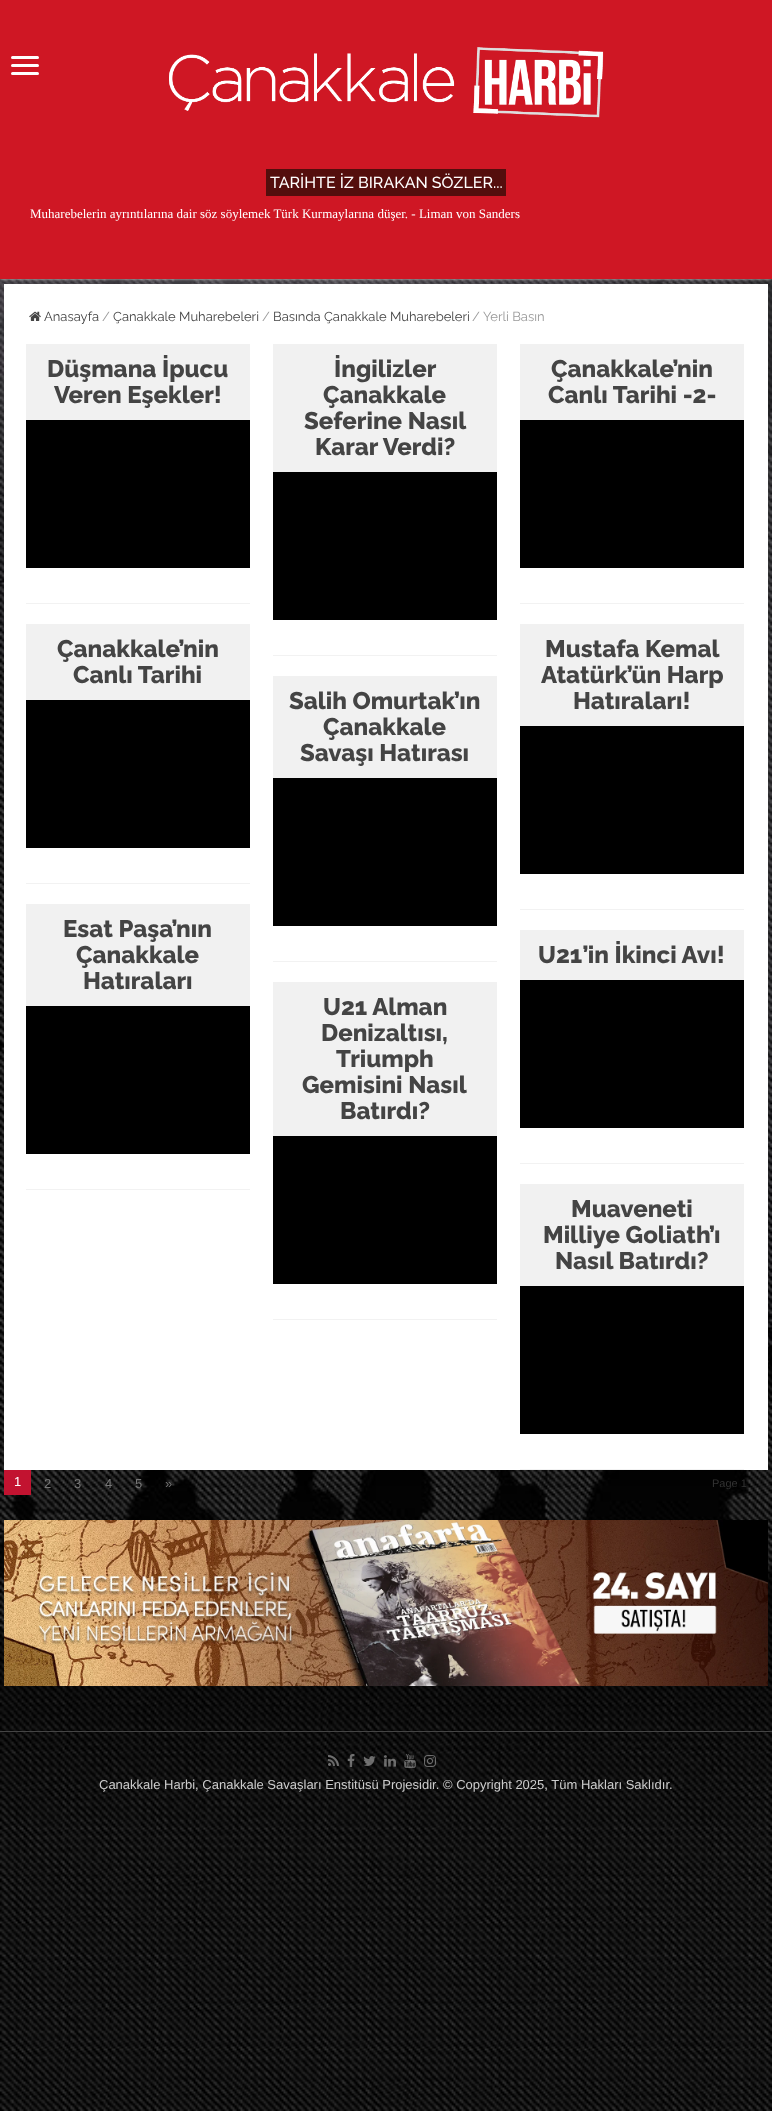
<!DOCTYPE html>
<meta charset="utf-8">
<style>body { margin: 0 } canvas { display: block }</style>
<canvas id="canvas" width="772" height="2111"></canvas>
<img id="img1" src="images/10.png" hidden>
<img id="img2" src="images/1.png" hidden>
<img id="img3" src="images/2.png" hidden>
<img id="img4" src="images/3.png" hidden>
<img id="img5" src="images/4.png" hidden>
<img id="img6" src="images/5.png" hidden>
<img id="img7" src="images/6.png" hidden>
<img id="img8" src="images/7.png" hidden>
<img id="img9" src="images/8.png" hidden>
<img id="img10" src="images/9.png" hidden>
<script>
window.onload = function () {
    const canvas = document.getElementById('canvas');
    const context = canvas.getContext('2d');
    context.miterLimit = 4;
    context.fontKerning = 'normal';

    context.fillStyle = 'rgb(255, 255, 255)';
    context.fillRect(0, 0, 772, 2111);
    context.drawImage(document.getElementById('img1'), 0, 279, 772, 1832);
    context.fillStyle = 'rgb(202, 202, 202)';
    context.filter = 'blur(1.5px)';
    context.beginPath();
    context.rect(0, 0, 772, 279);
    context.fill();
    context.filter = 'none';
    context.fillStyle = 'rgb(207, 23, 36)';
    context.fillRect(0, 0, 772, 279);
    context.fillStyle = 'rgb(255, 255, 255)';
    context.beginPath();
    context.roundRect(11, 56, 28, 3, 1.5);
    context.fill();
    context.beginPath();
    context.roundRect(11, 64, 28, 3, 1.5);
    context.fill();
    context.beginPath();
    context.roundRect(11, 72, 28, 3, 1.5);
    context.fill();
    context.drawImage(document.getElementById('img2'), 169, 47, 435, 71);
    context.fillStyle = 'rgb(84, 14, 13)';
    context.fillRect(266, 169, 240, 27);
    context.fillStyle = 'rgb(255, 255, 255)';
    context.fillRect(4, 284, 764, 1186);
    context.drawImage(document.getElementById('img3'), 29, 311, 12, 10);
    context.fillStyle = 'rgb(242, 242, 242)';
    context.fillRect(26, 603, 224, 1);
    context.fillStyle = 'rgb(241, 241, 241)';
    context.fillRect(26, 344, 224, 76);
    context.fillStyle = 'rgb(0, 0, 0)';
    context.fillRect(26, 420, 224, 148);
    context.fillStyle = 'rgb(242, 242, 242)';
    context.fillRect(273, 655, 224, 1);
    context.fillStyle = 'rgb(241, 241, 241)';
    context.fillRect(273, 344, 224, 128);
    context.fillStyle = 'rgb(0, 0, 0)';
    context.fillRect(273, 472, 224, 148);
    context.fillStyle = 'rgb(242, 242, 242)';
    context.fillRect(520, 603, 224, 1);
    context.fillStyle = 'rgb(241, 241, 241)';
    context.fillRect(520, 344, 224, 76);
    context.fillStyle = 'rgb(0, 0, 0)';
    context.fillRect(520, 420, 224, 148);
    context.fillStyle = 'rgb(242, 242, 242)';
    context.fillRect(26, 883, 224, 1);
    context.fillStyle = 'rgb(241, 241, 241)';
    context.fillRect(26, 624, 224, 76);
    context.fillStyle = 'rgb(0, 0, 0)';
    context.fillRect(26, 700, 224, 148);
    context.fillStyle = 'rgb(242, 242, 242)';
    context.fillRect(520, 909, 224, 1);
    context.fillStyle = 'rgb(241, 241, 241)';
    context.fillRect(520, 624, 224, 102);
    context.fillStyle = 'rgb(0, 0, 0)';
    context.fillRect(520, 726, 224, 148);
    context.fillStyle = 'rgb(242, 242, 242)';
    context.fillRect(273, 961, 224, 1);
    context.fillStyle = 'rgb(241, 241, 241)';
    context.fillRect(273, 676, 224, 102);
    context.fillStyle = 'rgb(0, 0, 0)';
    context.fillRect(273, 778, 224, 148);
    context.fillStyle = 'rgb(242, 242, 242)';
    context.fillRect(26, 1189, 224, 1);
    context.fillStyle = 'rgb(241, 241, 241)';
    context.fillRect(26, 904, 224, 102);
    context.fillStyle = 'rgb(0, 0, 0)';
    context.fillRect(26, 1006, 224, 148);
    context.fillStyle = 'rgb(242, 242, 242)';
    context.fillRect(520, 1163, 224, 1);
    context.fillStyle = 'rgb(241, 241, 241)';
    context.fillRect(520, 930, 224, 50);
    context.fillStyle = 'rgb(0, 0, 0)';
    context.fillRect(520, 980, 224, 148);
    context.fillStyle = 'rgb(242, 242, 242)';
    context.fillRect(273, 1319, 224, 1);
    context.fillStyle = 'rgb(241, 241, 241)';
    context.fillRect(273, 982, 224, 154);
    context.fillStyle = 'rgb(0, 0, 0)';
    context.fillRect(273, 1136, 224, 148);
    context.fillStyle = 'rgb(242, 242, 242)';
    context.fillRect(520, 1469, 224, 1);
    context.fillStyle = 'rgb(241, 241, 241)';
    context.fillRect(520, 1184, 224, 102);
    context.fillStyle = 'rgb(0, 0, 0)';
    context.fillRect(520, 1286, 224, 148);
    context.fillStyle = 'rgb(194, 19, 48)';
    context.fillRect(4, 1470, 27, 25);
    context.drawImage(document.getElementById('img4'), 4, 1520, 764, 166);
    context.fillStyle = 'rgb(68, 68, 68)';
    context.fillRect(0, 1731, 772, 1);
    context.drawImage(document.getElementById('img5'), 328, 1755, 11, 11);
    context.drawImage(document.getElementById('img6'), 347, 1754, 8, 13);
    context.drawImage(document.getElementById('img7'), 363, 1756, 13, 10);
    context.drawImage(document.getElementById('img8'), 384, 1755, 12, 12);
    context.drawImage(document.getElementById('img9'), 404, 1754, 12, 14);
    context.drawImage(document.getElementById('img10'), 424, 1755, 12, 12);
    context.font = '500 16px Raleway';
    context.fillStyle = 'rgb(255, 255, 255)';
    context.fillText('TARİHTE İZ BIRAKAN SÖZLER...', 270, 188);
    context.font = '13px Liberation Serif';
    context.fillText('Muharebelerin ayrıntılarına dair söz söylemek Türk Kurmaylarına düşer. - Liman von Sanders', 30, 218);
    context.font = '13px Raleway';
    context.fillStyle = 'rgb(68, 68, 68)';
    context.fillText('Anasayfa', 44, 321);
    context.fillStyle = 'rgb(153, 153, 153)';
    context.fillText('/', 102, 321);
    context.fillStyle = 'rgb(68, 68, 68)';
    context.fillText('Çanakkale Muharebeleri', 113, 321);
    context.fillStyle = 'rgb(153, 153, 153)';
    context.fillText('/', 262, 321);
    context.fillStyle = 'rgb(68, 68, 68)';
    context.fillText('Basında Çanakkale Muharebeleri', 273, 321);
    context.fillStyle = 'rgb(153, 153, 153)';
    context.fillText('/', 472, 321);
    context.fillText('Yerli Basın', 483, 321);
    context.font = '800 24px Raleway';
    context.fillStyle = 'rgb(68, 68, 68)';
    context.fillText('Düşmana İpucu', 47, 377);
    context.fillText('Veren Eşekler!', 54, 403);
    context.fillText('İngilizler', 334, 377);
    context.fillText('Çanakkale', 323, 403);
    context.fillText('Seferine Nasıl', 304, 429);
    context.fillText('Karar Verdi?', 315, 455);
    context.fillText('Çanakkale’nin', 551, 377);
    context.fillText('Canlı Tarihi -2-', 548, 403);
    context.fillText('Çanakkale’nin', 57, 657);
    context.fillText('Canlı Tarihi', 73, 683);
    context.fillText('Mustafa Kemal', 545, 657);
    context.fillText('Atatürk’ün Harp', 541, 683);
    context.fillText('Hatıraları!', 573, 709);
    context.fillText('Salih Omurtak’ın', 289, 709);
    context.fillText('Çanakkale', 323, 735);
    context.fillText('Savaşı Hatırası', 300, 761);
    context.fillText('Esat Paşa’nın', 63, 937);
    context.fillText('Çanakkale', 76, 963);
    context.fillText('Hatıraları', 83, 989);
    context.fillText('U21’in İkinci Avı!', 538, 963);
    context.fillText('U21 Alman', 323, 1015);
    context.fillText('Denizaltısı,', 321, 1041);
    context.fillText('Triumph', 336, 1067);
    context.fillText('Gemisini Nasıl', 302, 1093);
    context.fillText('Batırdı?', 340, 1119);
    context.fillText('Muaveneti', 571, 1217);
    context.fillText('Milliye Goliath’ı', 543, 1243);
    context.fillText('Nasıl Batırdı?', 555, 1269);
    context.font = '13px Liberation Sans';
    context.fillStyle = 'rgb(255, 255, 255)';
    context.fillText('1', 14, 1486);
    context.fillStyle = 'rgb(119, 119, 119)';
    context.fillText('2', 44, 1488);
    context.fillText('3', 74, 1488);
    context.fillText('4', 105, 1488);
    context.fillText('5', 135, 1488);
    context.fillText('»', 165, 1488);
    context.font = '11px Liberation Sans';
    context.fillStyle = 'rgb(51, 51, 51)';
    context.fillText('Page 1', 712, 1487);
    context.font = '13px Liberation Sans';
    context.fillStyle = 'rgb(204, 204, 204)';
    context.fillText('Çanakkale Harbi, Çanakkale Savaşları Enstitüsü Projesidir. © Copyright 2025, Tüm Hakları Saklıdır.', 99, 1789);
};
</script>
